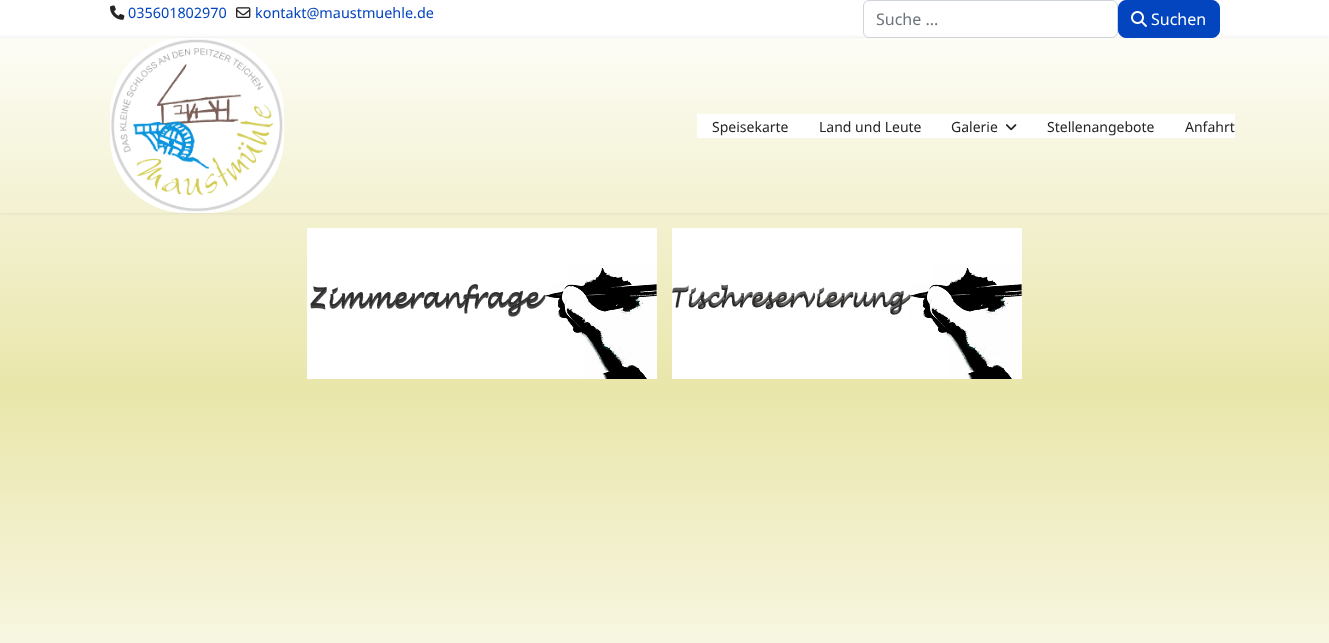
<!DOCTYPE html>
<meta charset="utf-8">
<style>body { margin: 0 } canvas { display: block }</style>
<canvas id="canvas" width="1329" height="643"></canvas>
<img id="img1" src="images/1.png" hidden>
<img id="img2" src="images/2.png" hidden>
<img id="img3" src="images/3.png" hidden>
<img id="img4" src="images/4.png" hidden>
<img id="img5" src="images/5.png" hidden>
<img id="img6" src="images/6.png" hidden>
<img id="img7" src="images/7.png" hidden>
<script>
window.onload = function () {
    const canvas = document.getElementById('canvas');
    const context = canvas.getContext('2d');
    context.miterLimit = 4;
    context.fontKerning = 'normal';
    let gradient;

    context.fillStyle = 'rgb(255, 255, 255)';
    context.fillRect(0, 0, 1329, 643);
    gradient = context.createLinearGradient(665, 0, 665, 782);
    gradient.addColorStop(0, 'rgb(255, 255, 255)');
    gradient.addColorStop(0.5, 'rgb(233, 230, 170)');
    gradient.addColorStop(1, 'rgb(255, 255, 255)');
    context.fillStyle = gradient;
    context.fillRect(0, 38, 1329, 605);
    context.drawImage(document.getElementById('img1'), 110, 5, 15, 15);
    context.drawImage(document.getElementById('img2'), 236, 7, 15, 11);
    context.save();
    context.beginPath();
    context.moveTo(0, 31);
    context.lineTo(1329, 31);
    context.lineTo(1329, 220);
    context.lineTo(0, 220);
    context.closePath();
    context.moveTo(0, 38);
    context.lineTo(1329, 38);
    context.lineTo(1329, 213);
    context.lineTo(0, 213);
    context.closePath();
    context.clip('evenodd');
    context.fillStyle = 'rgba(0, 0, 0, 0.1)';
    context.filter = 'blur(2px)';
    context.beginPath();
    context.rect(0, 38, 1329, 175);
    context.fill();
    context.filter = 'none';
    context.restore();
    context.fillStyle = 'rgb(255, 255, 255)';
    context.beginPath();
    context.roundRect(863.5, 0.5, 254, 37, 5.5);
    context.fill();
    context.strokeStyle = 'rgb(206, 212, 218)';
    context.stroke();
    context.fillStyle = 'rgb(3, 69, 191)';
    context.beginPath();
    context.roundRect(1118.5, 0.5, 101, 37, 7.5);
    context.fill();
    context.strokeStyle = 'rgb(3, 69, 191)';
    context.stroke();
    context.drawImage(document.getElementById('img3'), 1131, 11, 16, 16);
    context.fillStyle = 'rgb(255, 255, 255)';
    context.beginPath();
    context.roundRect(110, 38, 174, 175, 75);
    context.fill();
    context.drawImage(document.getElementById('img4'), 111, 39, 172, 173);
    context.fillRect(697, 114, 538, 24);
    context.drawImage(document.getElementById('img5'), 1006, 124, 11, 7);
    context.drawImage(document.getElementById('img6'), 307, 228, 350, 151);
    context.drawImage(document.getElementById('img7'), 672, 228, 350, 151);
    context.font = '14.4px Noto Sans';
    context.fillStyle = 'rgb(3, 69, 191)';
    context.fillText('035601802970', 128, 18);
    context.fillText('kontakt@maustmuehle.de', 255, 18);
    context.font = '16px Noto Sans';
    context.fillStyle = 'rgb(108, 117, 125)';
    context.fillText('Suche ...', 876, 25);
    context.fillStyle = 'rgb(255, 255, 255)';
    context.fillText('Suchen', 1151, 25);
    context.font = '14px Noto Sans';
    context.fillStyle = 'rgb(37, 37, 37)';
    context.fillText('Speisekarte', 712, 132);
    context.fillText('Land und Leute', 819, 132);
    context.fillText('Galerie', 951, 132);
    context.fillText('Stellenangebote', 1047, 132);
    context.fillText('Anfahrt', 1185, 132);
};
</script>
